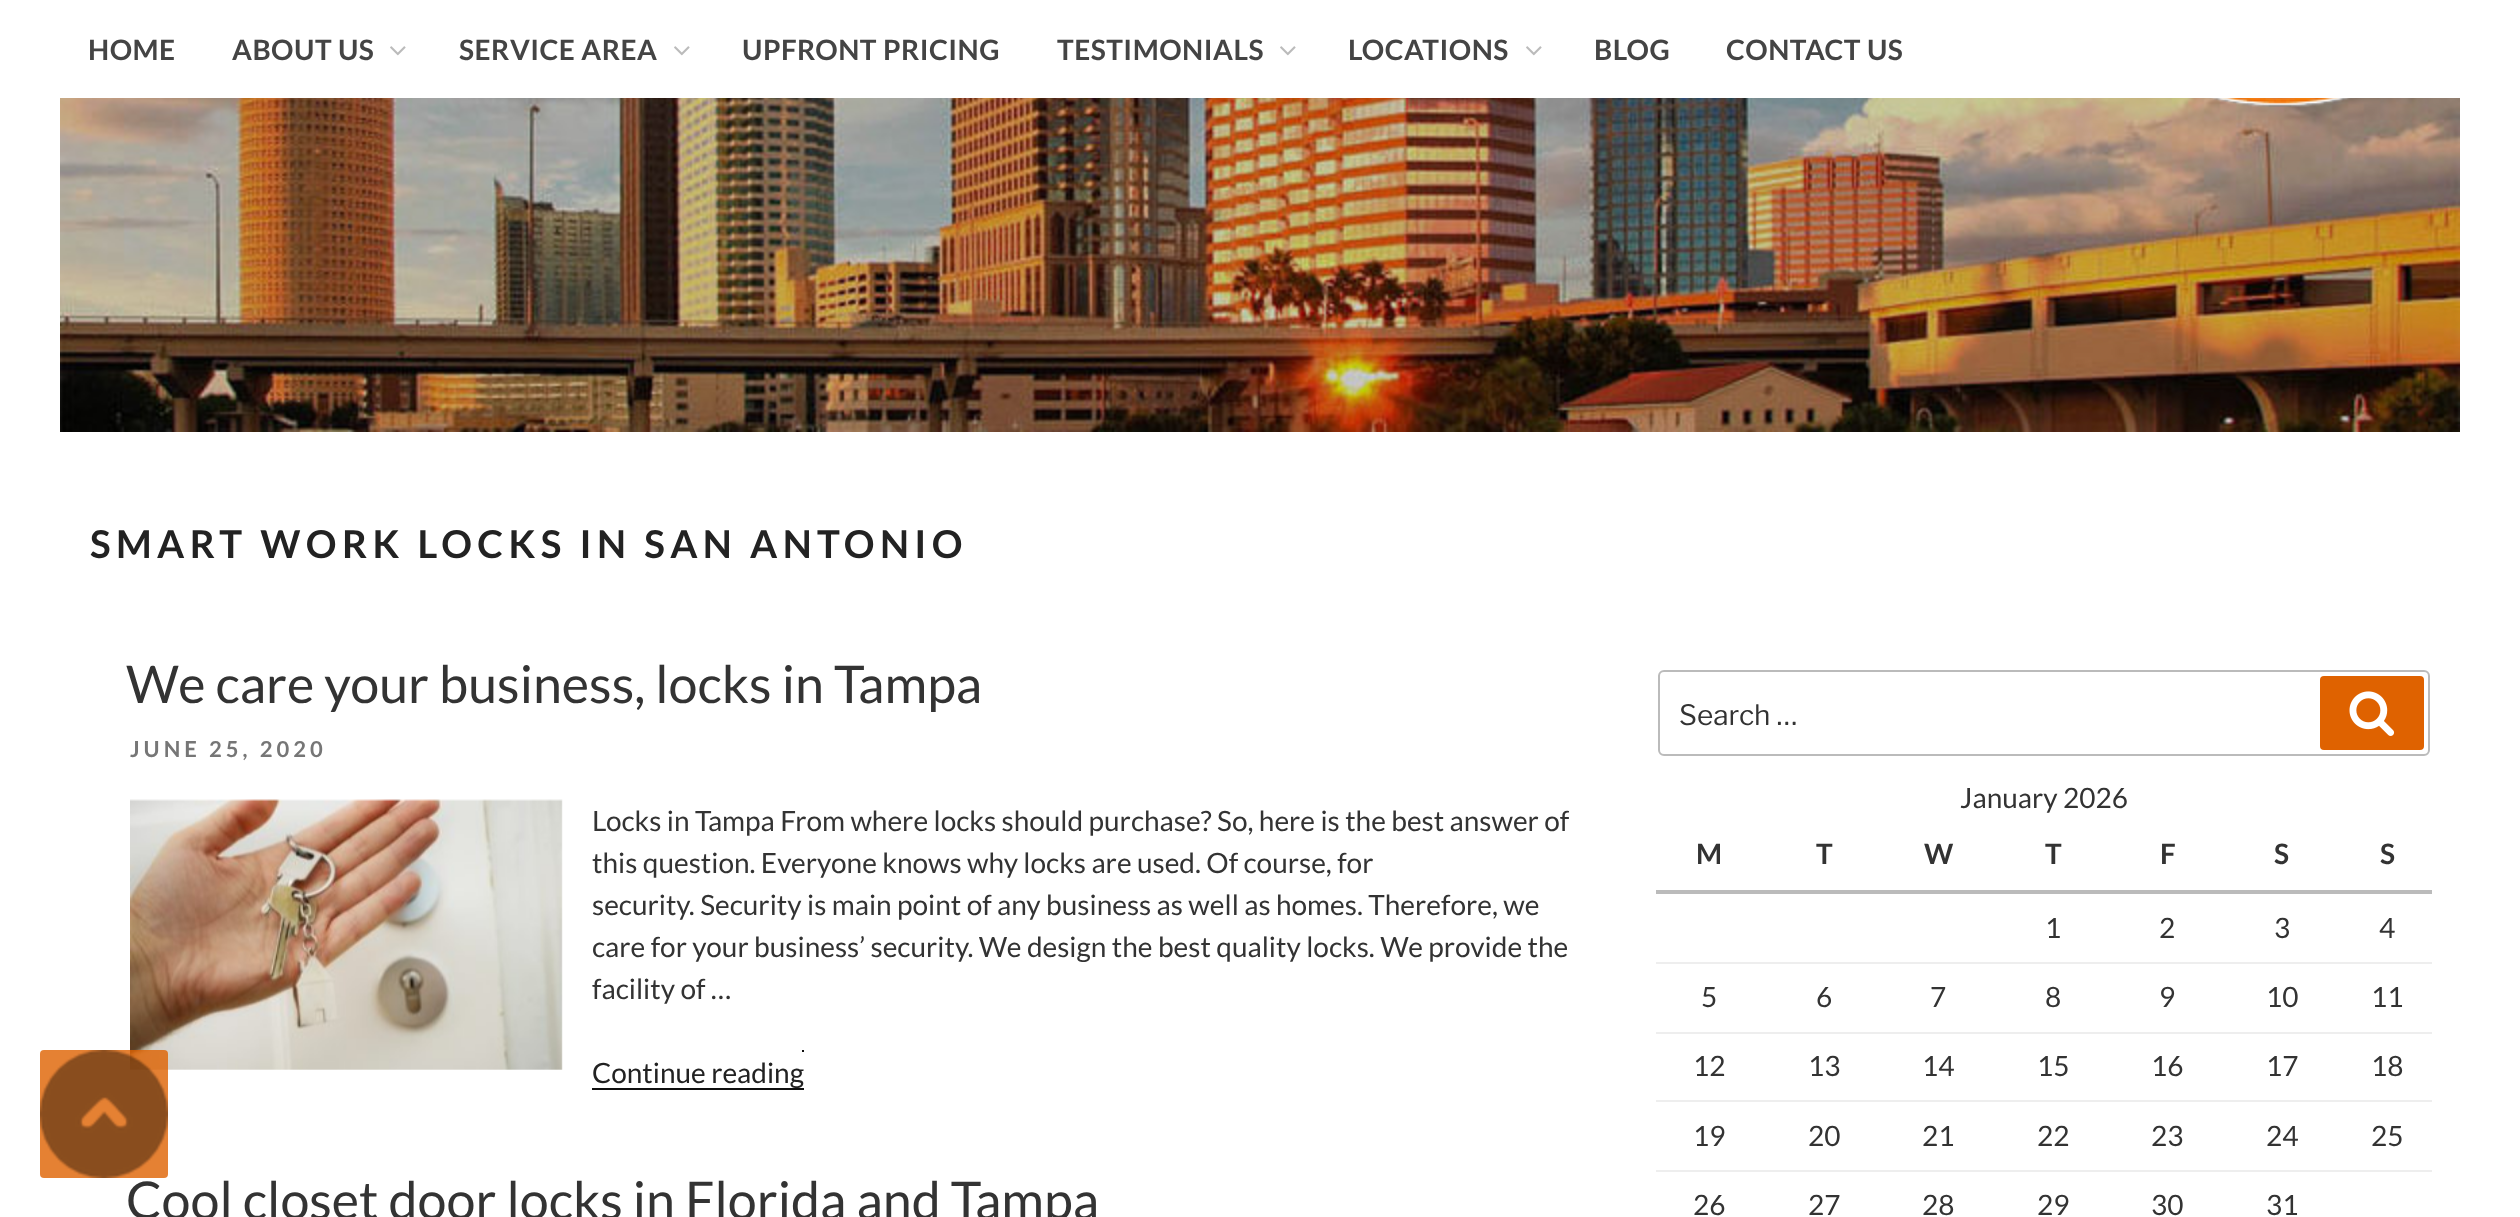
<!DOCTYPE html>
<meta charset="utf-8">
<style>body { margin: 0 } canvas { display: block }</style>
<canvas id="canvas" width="2520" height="1217"></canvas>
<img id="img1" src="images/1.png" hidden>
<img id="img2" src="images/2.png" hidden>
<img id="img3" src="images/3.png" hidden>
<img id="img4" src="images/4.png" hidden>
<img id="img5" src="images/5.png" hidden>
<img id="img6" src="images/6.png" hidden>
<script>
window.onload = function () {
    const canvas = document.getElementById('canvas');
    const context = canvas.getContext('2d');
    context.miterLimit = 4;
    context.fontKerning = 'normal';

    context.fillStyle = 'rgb(255, 255, 255)';
    context.fillRect(0, 0, 2520, 1217);
    context.drawImage(document.getElementById('img1'), 390, 46, 16, 10);
    context.drawImage(document.getElementById('img1'), 674, 46, 16, 10);
    context.drawImage(document.getElementById('img1'), 1280, 46, 16, 10);
    context.drawImage(document.getElementById('img1'), 1526, 46, 16, 10);
    context.drawImage(document.getElementById('img2'), 60, 98, 2400, 334);
    context.drawImage(document.getElementById('img3'), 2205, 98, 150, 9);
    context.drawImage(document.getElementById('img4'), 130, 799, 433, 271);
    context.fillStyle = 'rgb(15, 15, 15)';
    context.fillRect(592, 1088, 212, 2);
    context.fillRect(802, 1050, 2, 2);
    context.beginPath();
    context.roundRect(1659, 671, 770, 84, 5);
    context.strokeStyle = 'rgb(187, 187, 187)';
    context.lineWidth = 2;
    context.stroke();
    context.fillStyle = 'rgb(223, 98, 0)';
    context.beginPath();
    context.roundRect(2320, 676, 104, 74, 4);
    context.fill();
    context.drawImage(document.getElementById('img5'), 2349, 691, 46, 45);
    context.fillStyle = 'rgb(187, 187, 187)';
    context.fillRect(1656, 890, 776, 4);
    context.fillStyle = 'rgb(238, 238, 238)';
    context.fillRect(1656, 962, 776, 2);
    context.fillRect(1656, 1032, 776, 2);
    context.fillRect(1656, 1100, 776, 2);
    context.fillRect(1656, 1170, 776, 2);
    context.fillStyle = 'rgba(223, 98, 0, 0.8)';
    context.beginPath();
    context.roundRect(40, 1050, 128, 128, 4);
    context.fill();
    context.drawImage(document.getElementById('img6'), 40, 1050, 128, 128);
    context.letterSpacing = '0.5px';
    context.font = 'bold 28px Lato';
    context.fillStyle = 'rgb(68, 68, 68)';
    context.fillText('HOME', 88, 60);
    context.fillText('ABOUT US', 232, 60);
    context.fillText('SERVICE AREA', 459, 60);
    context.fillText('UPFRONT PRICING', 742, 60);
    context.fillText('TESTIMONIALS', 1057, 60);
    context.fillText('LOCATIONS', 1348, 60);
    context.fillText('BLOG', 1594, 60);
    context.fillText('CONTACT US', 1726, 60);
    context.letterSpacing = '5.4px';
    context.font = 'bold 38.4px Lato';
    context.fillStyle = 'rgb(34, 34, 34)';
    context.fillText('SMART WORK LOCKS IN SAN ANTONIO', 90, 558);
    context.letterSpacing = '0px';
    context.font = '52px Lato';
    context.fillStyle = 'rgb(51, 51, 51)';
    context.fillText('We care your business, locks in Tampa', 126, 703);
    context.letterSpacing = '4px';
    context.font = 'bold 22px Lato';
    context.fillStyle = 'rgb(118, 118, 118)';
    context.fillText('JUNE 25, 2020', 130, 757);
    context.letterSpacing = '0px';
    context.font = '28px Lato';
    context.fillStyle = 'rgb(51, 51, 51)';
    context.fillText('Locks in Tampa From where locks should purchase? So, here is the best answer of', 592, 831);
    context.fillText('this question. Everyone knows why locks are used. Of course, for', 592, 873);
    context.fillText('security. Security is main point of any business as well as homes. Therefore, we', 592, 915);
    context.fillText('care for your business’ security. We design the best quality locks. We provide the', 592, 957);
    context.fillText('facility of …', 592, 999);
    context.fillStyle = 'rgb(34, 34, 34)';
    context.fillText('Continue reading', 592, 1083);
    context.font = '52px Lato';
    context.fillStyle = 'rgb(51, 51, 51)';
    context.fillText('Cool closet door locks in Florida and Tampa', 126, 1219);
    context.font = '100 28px Libre Franklin';
    context.fillText('Search …', 1679, 725);
    context.font = '28px Lato';
    context.fillText('January 2026', 1960, 808);
    context.font = 'bold 28px Lato';
    context.fillText('M', 1696, 864);
    context.fillText('T', 1816, 864);
    context.fillText('W', 1924, 864);
    context.fillText('T', 2045, 864);
    context.fillText('F', 2160, 864);
    context.fillText('S', 2274, 864);
    context.fillText('S', 2380, 864);
    context.font = '28px Lato';
    context.fillText('1', 2045, 938);
    context.fillText('2', 2159, 938);
    context.fillText('3', 2274, 938);
    context.fillText('4', 2379, 938);
    context.fillText('5', 1701, 1007);
    context.fillText('6', 1816, 1007);
    context.fillText('7', 1930, 1007);
    context.fillText('8', 2045, 1007);
    context.fillText('9', 2159, 1007);
    context.fillText('10', 2266, 1007);
    context.fillText('11', 2371, 1007);
    context.fillText('12', 1693, 1076);
    context.fillText('13', 1808, 1076);
    context.fillText('14', 1922, 1076);
    context.fillText('15', 2037, 1076);
    context.fillText('16', 2151, 1076);
    context.fillText('17', 2266, 1076);
    context.fillText('18', 2371, 1076);
    context.fillText('19', 1693, 1146);
    context.fillText('20', 1808, 1146);
    context.fillText('21', 1922, 1146);
    context.fillText('22', 2037, 1146);
    context.fillText('23', 2151, 1146);
    context.fillText('24', 2266, 1146);
    context.fillText('25', 2371, 1146);
    context.fillText('26', 1693, 1215);
    context.fillText('27', 1808, 1215);
    context.fillText('28', 1922, 1215);
    context.fillText('29', 2037, 1215);
    context.fillText('30', 2151, 1215);
    context.fillText('31', 2266, 1215);
};
</script>
